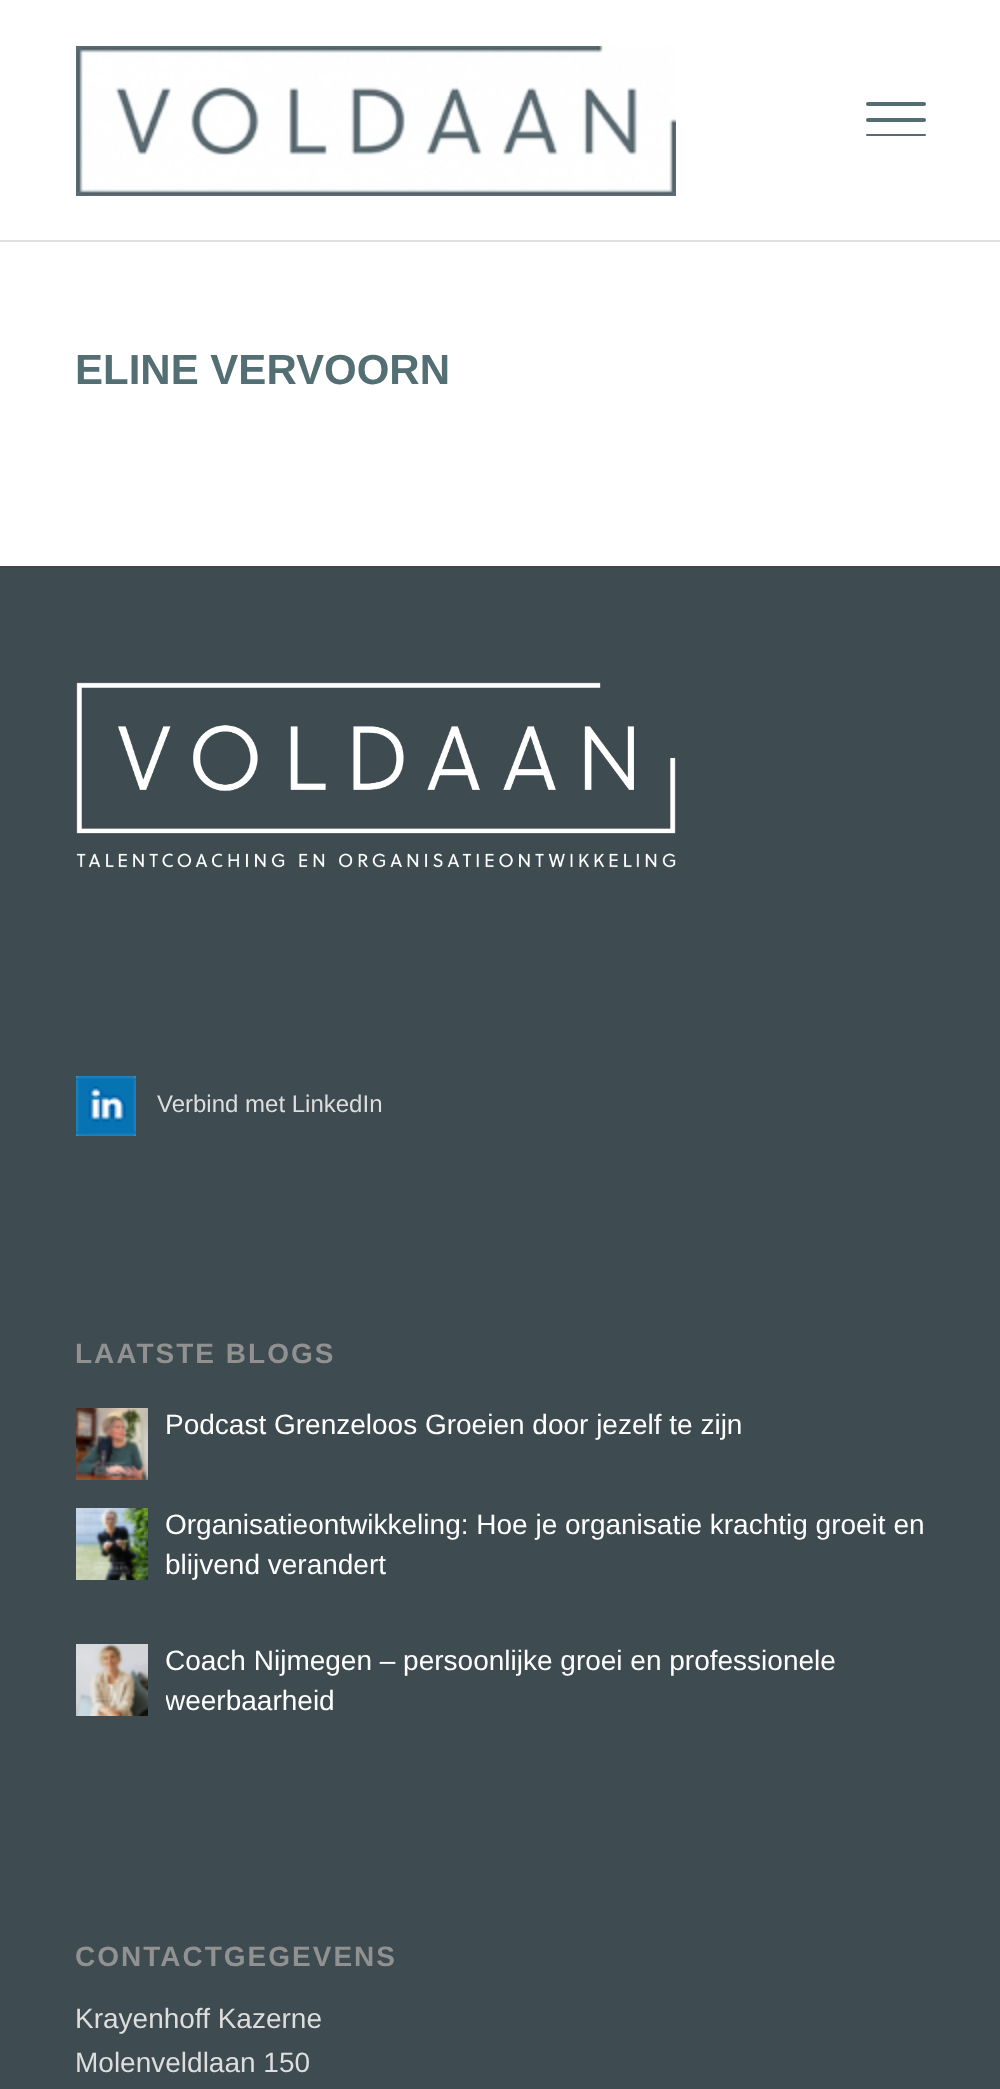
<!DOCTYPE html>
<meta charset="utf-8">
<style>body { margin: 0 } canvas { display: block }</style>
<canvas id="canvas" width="1000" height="2089"></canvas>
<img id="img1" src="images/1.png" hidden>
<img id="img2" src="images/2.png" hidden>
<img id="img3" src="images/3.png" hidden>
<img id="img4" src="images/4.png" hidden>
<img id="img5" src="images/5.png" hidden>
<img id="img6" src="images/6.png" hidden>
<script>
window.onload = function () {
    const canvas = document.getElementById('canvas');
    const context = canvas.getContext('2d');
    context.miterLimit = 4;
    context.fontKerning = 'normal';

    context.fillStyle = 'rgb(255, 255, 255)';
    context.fillRect(0, 0, 1000, 2089);
    context.drawImage(document.getElementById('img1'), 76, 46, 600, 150);
    context.fillStyle = 'rgb(83, 109, 116)';
    context.beginPath();
    context.roundRect(866, 118, 60, 4, 2);
    context.fill();
    context.beginPath();
    context.roundRect(866, 102, 60, 4, 2);
    context.fill();
    context.beginPath();
    context.roundRect(866, 134, 60, 2, 1);
    context.fill();
    context.fillStyle = 'rgb(225, 225, 225)';
    context.fillRect(0, 240, 1000, 2);
    context.fillStyle = 'rgb(62, 75, 81)';
    context.fillRect(0, 568, 1000, 1521);
    context.fillStyle = 'rgb(68, 68, 68)';
    context.fillRect(0, 566, 1000, 2);
    context.drawImage(document.getElementById('img2'), 76, 682, 600, 186);
    context.drawImage(document.getElementById('img3'), 76, 1076, 60, 60);
    context.drawImage(document.getElementById('img4'), 76, 1408, 72, 72);
    context.drawImage(document.getElementById('img5'), 76, 1508, 72, 72);
    context.drawImage(document.getElementById('img6'), 76, 1644, 72, 72);
    context.font = 'bold 42px Liberation Sans';
    context.fillStyle = 'rgb(83, 111, 115)';
    context.fillText('ELINE VERVOORN', 75, 384);
    context.font = '24px Liberation Sans';
    context.fillStyle = 'rgb(221, 221, 221)';
    context.fillText('Verbind met LinkedIn', 157, 1112);
    context.letterSpacing = '2px';
    context.font = 'bold 28px Liberation Sans';
    context.fillStyle = 'rgb(145, 145, 145)';
    context.fillText('LAATSTE BLOGS', 75, 1363);
    context.letterSpacing = '0px';
    context.font = '28px Liberation Sans';
    context.fillStyle = 'rgb(255, 255, 255)';
    context.fillText('Podcast Grenzeloos Groeien door jezelf te zijn', 165, 1434);
    context.fillText('Organisatieontwikkeling: Hoe je organisatie krachtig groeit en', 165, 1534);
    context.fillText('blijvend verandert', 165, 1574);
    context.fillText('Coach Nijmegen – persoonlijke groei en professionele', 165, 1670);
    context.save();
    context.beginPath();
    context.rect(166, 1640, 760, 80);
    context.clip();
    context.fillText('weerbaarheid', 165, 1710);
    context.restore();
    context.letterSpacing = '2px';
    context.font = 'bold 28px Liberation Sans';
    context.fillStyle = 'rgb(145, 145, 145)';
    context.fillText('CONTACTGEGEVENS', 75, 1966);
    context.letterSpacing = '0px';
    context.font = '28px Liberation Sans';
    context.fillStyle = 'rgb(221, 221, 221)';
    context.fillText('Krayenhoff Kazerne', 75, 2028);
    context.fillText('Molenveldlaan 150', 75, 2072);
};
</script>
